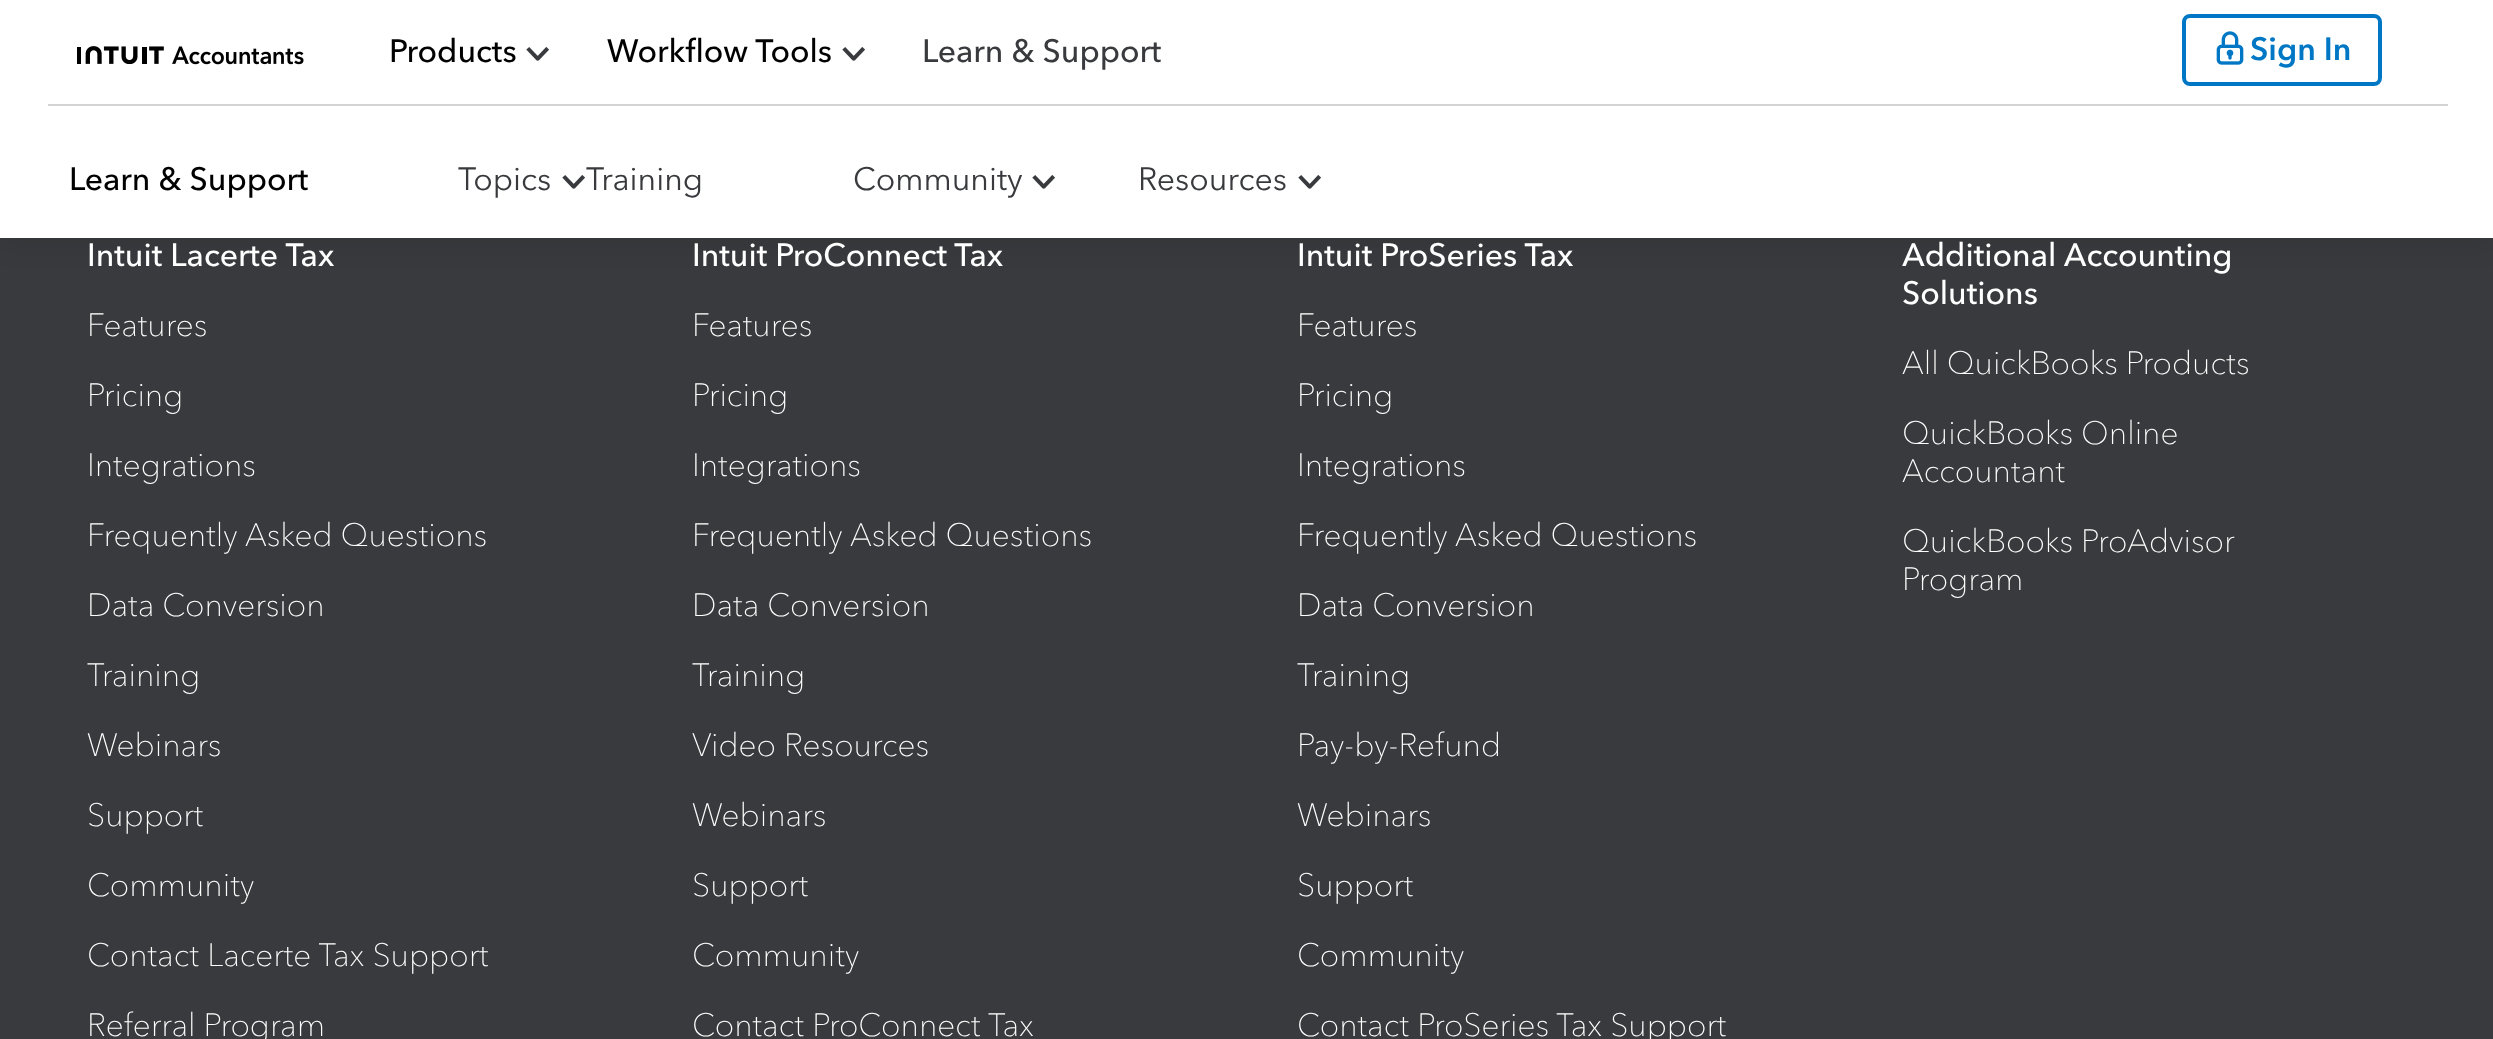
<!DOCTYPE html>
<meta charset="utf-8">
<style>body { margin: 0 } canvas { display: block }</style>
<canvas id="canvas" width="2493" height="1039"></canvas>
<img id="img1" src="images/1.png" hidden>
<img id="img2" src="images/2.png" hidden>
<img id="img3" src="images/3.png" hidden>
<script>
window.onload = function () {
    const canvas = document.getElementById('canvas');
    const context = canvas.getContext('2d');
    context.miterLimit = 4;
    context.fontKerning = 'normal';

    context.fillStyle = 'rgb(57, 58, 61)';
    context.fillRect(0, 0, 2493, 1039);
    context.fillStyle = 'rgba(0, 0, 0, 0.08)';
    context.filter = 'blur(12px)';
    context.beginPath();
    context.rect(0, 8, 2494, 238);
    context.fill();
    context.filter = 'none';
    context.fillStyle = 'rgb(255, 255, 255)';
    context.fillRect(0, 0, 2493, 238);
    context.fillStyle = 'rgb(211, 211, 211)';
    context.fillRect(48, 104, 2400, 2);
    context.drawImage(document.getElementById('img1'), 77, 46, 227, 19);
    context.drawImage(document.getElementById('img2'), 526, 47, 23, 14);
    context.drawImage(document.getElementById('img2'), 842, 47, 23, 14);
    context.beginPath();
    context.roundRect(2184, 16, 196, 68, 6);
    context.strokeStyle = 'rgb(0, 119, 197)';
    context.lineWidth = 4;
    context.stroke();
    context.drawImage(document.getElementById('img3'), 2216, 31, 28, 34);
    context.drawImage(document.getElementById('img2'), 562, 175, 23, 14);
    context.drawImage(document.getElementById('img2'), 1032, 175, 23, 14);
    context.drawImage(document.getElementById('img2'), 1298, 175, 23, 14);
    context.font = '500 32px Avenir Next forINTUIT';
    context.fillStyle = 'rgb(0, 0, 0)';
    context.fillText('Products', 389, 62);
    context.fillText('Workflow Tools', 607, 62);
    context.fillStyle = 'rgb(57, 58, 61)';
    context.fillText('Learn & Support', 922, 62);
    context.font = '600 32px Avenir Next forINTUIT';
    context.fillStyle = 'rgb(0, 119, 197)';
    context.fillText('Sign In', 2250, 60);
    context.font = '500 32px Avenir Next forINTUIT';
    context.fillStyle = 'rgb(0, 0, 0)';
    context.fillText('Learn & Support', 69, 190);
    context.font = '32px Avenir Next forINTUIT';
    context.fillStyle = 'rgb(57, 58, 61)';
    context.fillText('Topics', 458, 190);
    context.fillText('Training', 586, 190);
    context.fillText('Community', 853, 190);
    context.fillText('Resources', 1138, 190);
    context.font = '500 32px Avenir Next forINTUIT';
    context.fillStyle = 'rgb(255, 255, 255)';
    context.fillText('Intuit Lacerte Tax', 87, 266);
    context.font = '100 32px Avenir Next forINTUIT';
    context.fillText('Features', 87, 336);
    context.fillText('Pricing', 87, 406);
    context.fillText('Integrations', 87, 476);
    context.fillText('Frequently Asked Questions', 87, 546);
    context.fillText('Data Conversion', 87, 616);
    context.fillText('Training', 87, 686);
    context.fillText('Webinars', 87, 756);
    context.fillText('Support', 87, 826);
    context.fillText('Community', 87, 896);
    context.fillText('Contact Lacerte Tax Support', 87, 966);
    context.fillText('Referral Program', 87, 1036);
    context.font = '500 32px Avenir Next forINTUIT';
    context.fillText('Intuit ProConnect Tax', 692, 266);
    context.font = '100 32px Avenir Next forINTUIT';
    context.fillText('Features', 692, 336);
    context.fillText('Pricing', 692, 406);
    context.fillText('Integrations', 692, 476);
    context.fillText('Frequently Asked Questions', 692, 546);
    context.fillText('Data Conversion', 692, 616);
    context.fillText('Training', 692, 686);
    context.fillText('Video Resources', 692, 756);
    context.fillText('Webinars', 692, 826);
    context.fillText('Support', 692, 896);
    context.fillText('Community', 692, 966);
    context.fillText('Contact ProConnect Tax', 692, 1036);
    context.font = '500 32px Avenir Next forINTUIT';
    context.fillText('Intuit ProSeries Tax', 1297, 266);
    context.font = '100 32px Avenir Next forINTUIT';
    context.fillText('Features', 1297, 336);
    context.fillText('Pricing', 1297, 406);
    context.fillText('Integrations', 1297, 476);
    context.fillText('Frequently Asked Questions', 1297, 546);
    context.fillText('Data Conversion', 1297, 616);
    context.fillText('Training', 1297, 686);
    context.fillText('Pay-by-Refund', 1297, 756);
    context.fillText('Webinars', 1297, 826);
    context.fillText('Support', 1297, 896);
    context.fillText('Community', 1297, 966);
    context.fillText('Contact ProSeries Tax Support', 1297, 1036);
    context.font = '500 32px Avenir Next forINTUIT';
    context.fillText('Additional Accounting', 1902, 266);
    context.fillText('Solutions', 1902, 304);
    context.font = '100 32px Avenir Next forINTUIT';
    context.fillText('All QuickBooks Products', 1902, 374);
    context.fillText('QuickBooks Online', 1902, 444);
    context.fillText('Accountant', 1902, 482);
    context.fillText('QuickBooks ProAdvisor', 1902, 552);
    context.fillText('Program', 1902, 590);
};
</script>
